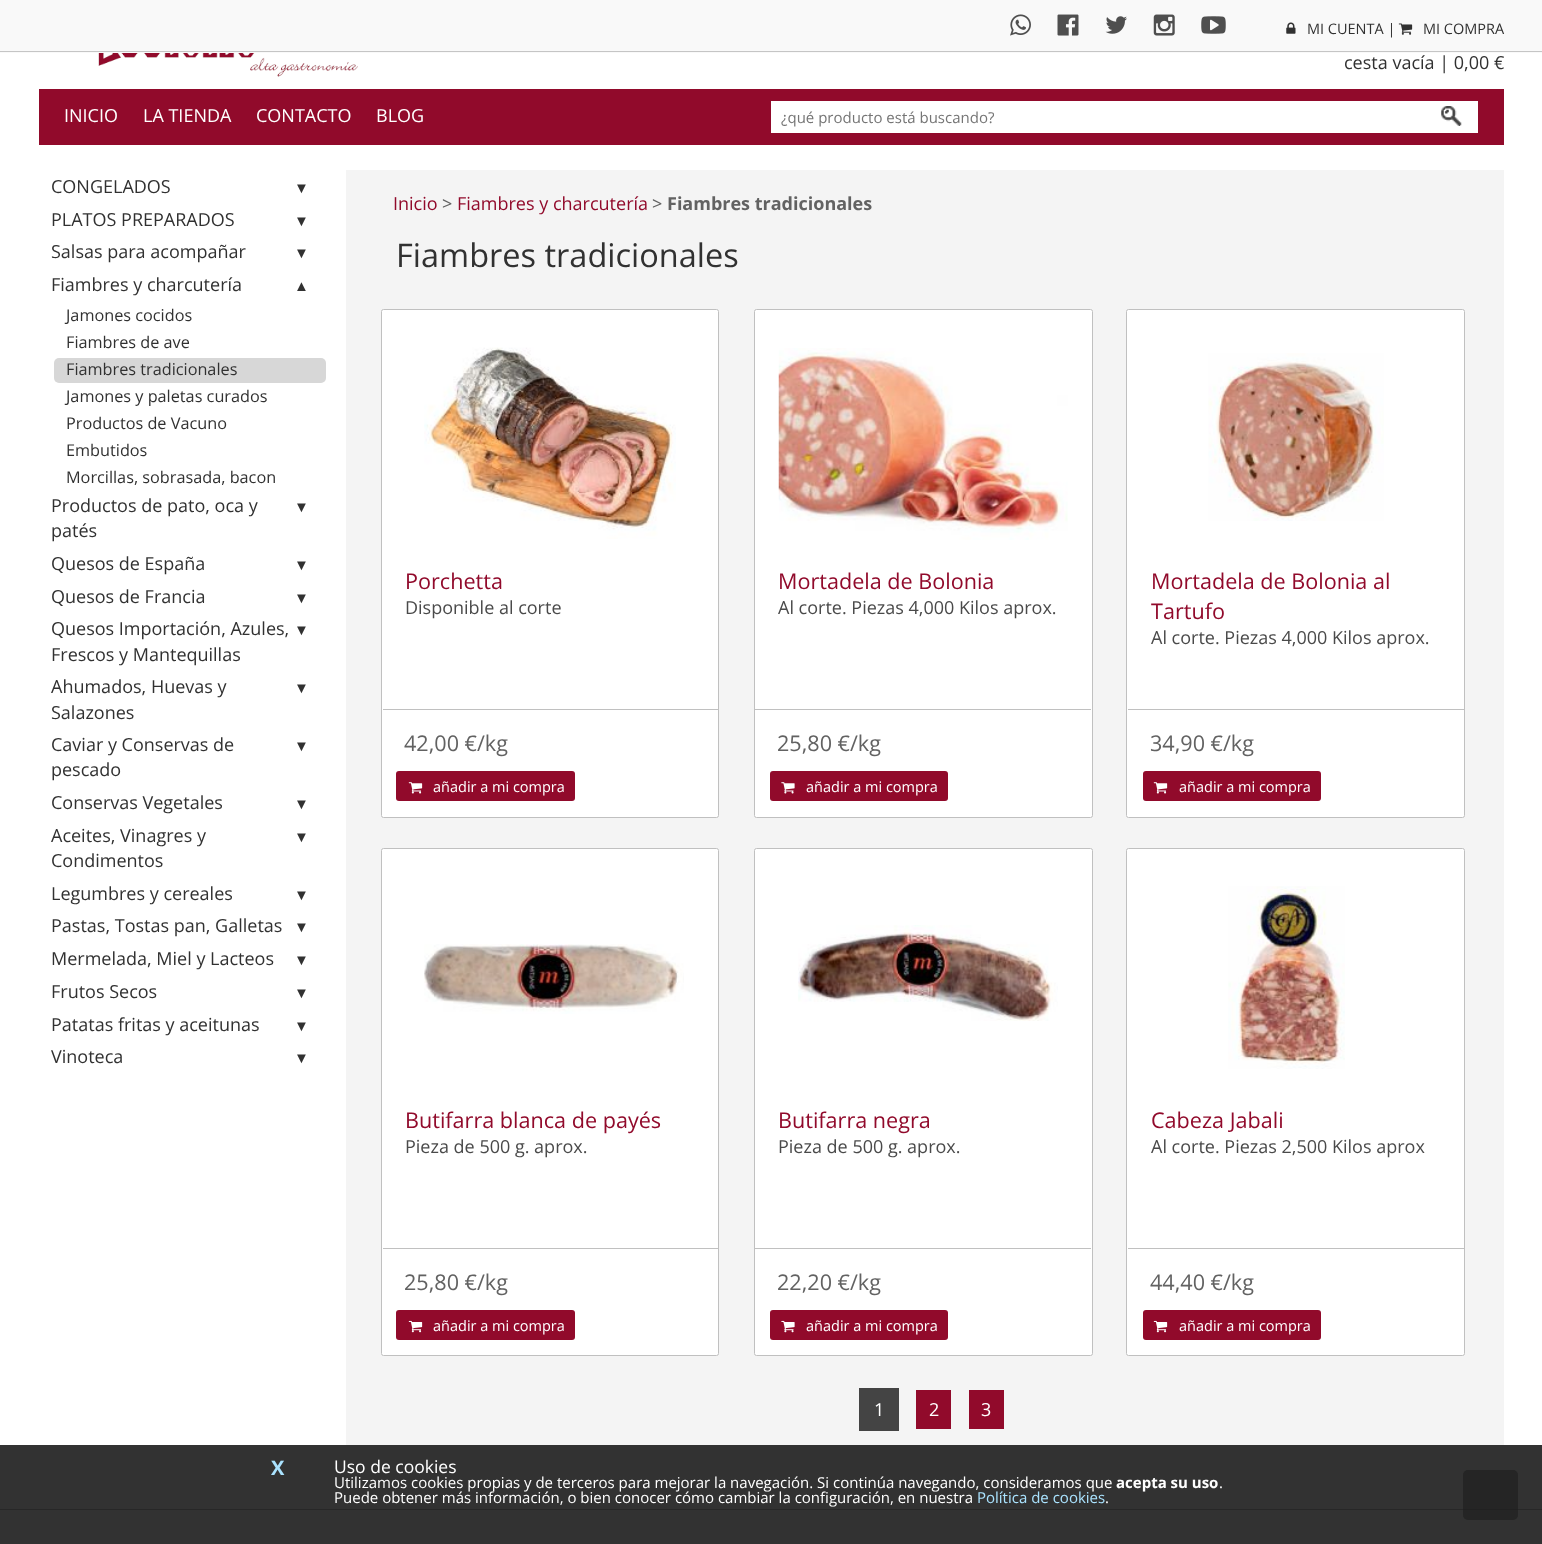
<!DOCTYPE html>
<meta charset="utf-8">
<style>body { margin: 0 } canvas { display: block }</style>
<canvas id="canvas" width="1542" height="1544"></canvas>
<img id="img1" src="images/1.png" hidden>
<img id="img2" src="images/2.png" hidden>
<img id="img3" src="images/3.png" hidden>
<img id="img4" src="images/4.png" hidden>
<img id="img5" src="images/5.png" hidden>
<img id="img6" src="images/6.png" hidden>
<img id="img7" src="images/7.png" hidden>
<img id="img8" src="images/8.png" hidden>
<img id="img9" src="images/9.png" hidden>
<img id="img10" src="images/10.png" hidden>
<img id="img11" src="images/11.png" hidden>
<img id="img12" src="images/12.png" hidden>
<img id="img13" src="images/13.png" hidden>
<img id="img14" src="images/14.png" hidden>
<img id="img15" src="images/15.png" hidden>
<img id="img16" src="images/16.png" hidden>
<img id="img17" src="images/17.png" hidden>
<img id="img18" src="images/18.png" hidden>
<img id="img19" src="images/19.png" hidden>
<script>
window.onload = function () {
    const canvas = document.getElementById('canvas');
    const context = canvas.getContext('2d');
    context.miterLimit = 4;
    context.fontKerning = 'normal';

    context.fillStyle = 'rgb(50, 50, 50)';
    context.fillRect(0, 0, 1542, 1544);
    context.fillStyle = 'rgb(249, 249, 249)';
    context.fillRect(0, 0, 1542, 53);
    context.fillStyle = 'rgb(197, 197, 197)';
    context.fillRect(0, 51, 1542, 1);
    context.drawImage(document.getElementById('img1'), 1010, 14, 21, 22);
    context.drawImage(document.getElementById('img2'), 1057, 14, 22, 22);
    context.drawImage(document.getElementById('img3'), 1105, 16, 22, 18);
    context.drawImage(document.getElementById('img4'), 1153, 14, 22, 22);
    context.drawImage(document.getElementById('img5'), 1201, 16, 25, 18);
    context.drawImage(document.getElementById('img6'), 1286, 22, 10, 12);
    context.drawImage(document.getElementById('img7'), 1398, 23, 15, 12);
    context.fillStyle = 'rgb(255, 255, 255)';
    context.fillRect(0, 53, 1542, 1392);
    context.drawImage(document.getElementById('img8'), 98, 53, 260, 24);
    context.fillStyle = 'rgb(145, 10, 43)';
    context.fillRect(39, 89, 1465, 56);
    context.fillStyle = 'rgb(255, 255, 255)';
    context.fillRect(771, 101, 707, 32);
    context.drawImage(document.getElementById('img9'), 1441, 106, 21, 20);
    context.fillStyle = 'rgb(215, 215, 215)';
    context.beginPath();
    context.roundRect(54, 358, 272, 25, 5);
    context.fill();
    context.fillStyle = 'rgb(244, 244, 244)';
    context.fillRect(346, 170, 1158, 1275);
    context.fillStyle = 'rgb(255, 255, 255)';
    context.beginPath();
    context.roundRect(381.5, 309.5, 337, 508, 2);
    context.fill();
    context.strokeStyle = 'rgb(192, 192, 192)';
    context.stroke();
    context.drawImage(document.getElementById('img10'), 424, 347, 252, 192);
    context.fillStyle = 'rgb(192, 192, 192)';
    context.fillRect(383, 709, 335, 1);
    context.fillStyle = 'rgb(145, 10, 43)';
    context.beginPath();
    context.roundRect(396, 771, 179, 30, 3);
    context.fill();
    context.drawImage(document.getElementById('img11'), 408, 782, 15, 12);
    context.fillStyle = 'rgb(255, 255, 255)';
    context.beginPath();
    context.roundRect(754.5, 309.5, 338, 508, 2);
    context.fill();
    context.stroke();
    context.drawImage(document.getElementById('img12'), 778, 348, 290, 192);
    context.fillStyle = 'rgb(192, 192, 192)';
    context.fillRect(755, 709, 336, 1);
    context.fillStyle = 'rgb(145, 10, 43)';
    context.beginPath();
    context.roundRect(770, 771, 178, 30, 3);
    context.fill();
    context.drawImage(document.getElementById('img13'), 781, 782, 14, 12);
    context.fillStyle = 'rgb(255, 255, 255)';
    context.beginPath();
    context.roundRect(1126.5, 309.5, 338, 508, 2);
    context.fill();
    context.stroke();
    context.drawImage(document.getElementById('img14'), 1208, 353, 176, 168);
    context.fillStyle = 'rgb(192, 192, 192)';
    context.fillRect(1128, 709, 336, 1);
    context.fillStyle = 'rgb(145, 10, 43)';
    context.beginPath();
    context.roundRect(1143, 771, 178, 30, 3);
    context.fill();
    context.drawImage(document.getElementById('img11'), 1153, 782, 15, 12);
    context.fillStyle = 'rgb(255, 255, 255)';
    context.beginPath();
    context.roundRect(381.5, 848.5, 337, 507, 2);
    context.fill();
    context.stroke();
    context.drawImage(document.getElementById('img15'), 424, 944, 260, 70);
    context.fillStyle = 'rgb(192, 192, 192)';
    context.fillRect(383, 1248, 335, 1);
    context.fillStyle = 'rgb(145, 10, 43)';
    context.beginPath();
    context.roundRect(396, 1310, 179, 30, 3);
    context.fill();
    context.drawImage(document.getElementById('img16'), 408, 1320, 15, 13);
    context.fillStyle = 'rgb(255, 255, 255)';
    context.beginPath();
    context.roundRect(754.5, 848.5, 338, 507, 2);
    context.fill();
    context.stroke();
    context.drawImage(document.getElementById('img17'), 798, 925, 260, 96);
    context.fillStyle = 'rgb(192, 192, 192)';
    context.fillRect(755, 1248, 336, 1);
    context.fillStyle = 'rgb(145, 10, 43)';
    context.beginPath();
    context.roundRect(770, 1310, 178, 30, 3);
    context.fill();
    context.drawImage(document.getElementById('img18'), 781, 1320, 14, 13);
    context.fillStyle = 'rgb(255, 255, 255)';
    context.beginPath();
    context.roundRect(1126.5, 848.5, 338, 507, 2);
    context.fill();
    context.stroke();
    context.drawImage(document.getElementById('img19'), 1228, 886, 117, 183);
    context.fillStyle = 'rgb(192, 192, 192)';
    context.fillRect(1128, 1248, 336, 1);
    context.fillStyle = 'rgb(145, 10, 43)';
    context.beginPath();
    context.roundRect(1143, 1310, 178, 30, 3);
    context.fill();
    context.drawImage(document.getElementById('img16'), 1153, 1320, 15, 13);
    context.fillStyle = 'rgb(68, 68, 68)';
    context.fillRect(859, 1388, 40, 43);
    context.fillStyle = 'rgb(145, 10, 43)';
    context.fillRect(916, 1390, 35, 39);
    context.fillRect(969, 1390, 35, 39);
    context.fillStyle = 'rgb(39, 39, 39)';
    context.fillRect(0, 1509, 1542, 1);
    context.fillStyle = 'rgba(31, 31, 31, 0.7)';
    context.beginPath();
    context.roundRect(1463, 1470, 55, 50, 5);
    context.fill();
    context.font = '14.5px Open Sans';
    context.fillStyle = 'rgb(49, 49, 49)';
    context.fillText('MI CUENTA |', 1307, 34);
    context.fillText('MI COMPRA', 1423, 34);
    context.font = '18px Open Sans';
    context.fillText('cesta vacía | 0,00 €', 1344, 69);
    context.fillStyle = 'rgb(255, 255, 255)';
    context.fillText('INICIO', 64, 122);
    context.fillText('LA TIENDA', 143, 122);
    context.fillText('CONTACTO', 256, 122);
    context.fillText('BLOG', 376, 122);
    context.font = '15px Open Sans';
    context.fillStyle = 'rgb(117, 117, 117)';
    context.fillText('¿qué producto está buscando?', 781, 123);
    context.font = '18px Open Sans';
    context.fillStyle = 'rgb(49, 49, 49)';
    context.fillText('CONGELADOS', 51, 193);
    context.font = '15px Liberation Sans';
    context.fillText('▼', 294, 193);
    context.font = '18px Open Sans';
    context.fillText('PLATOS PREPARADOS', 51, 226);
    context.font = '15px Liberation Sans';
    context.fillText('▼', 294, 226);
    context.font = '18px Open Sans';
    context.fillText('Salsas para acompañar', 51, 258);
    context.font = '15px Liberation Sans';
    context.fillText('▼', 294, 258);
    context.font = '18px Open Sans';
    context.fillText('Fiambres y charcutería', 51, 291);
    context.font = '15px Liberation Sans';
    context.fillText('▲', 294, 291);
    context.font = '16.25px Open Sans';
    context.fillText('Jamones cocidos', 66, 321);
    context.fillText('Fiambres de ave', 66, 348);
    context.fillText('Fiambres tradicionales', 66, 375);
    context.fillText('Jamones y paletas curados', 66, 402);
    context.fillText('Productos de Vacuno', 66, 429);
    context.fillText('Embutidos', 66, 456);
    context.fillText('Morcillas, sobrasada, bacon', 66, 483);
    context.font = '18px Open Sans';
    context.fillText('Productos de pato, oca y', 51, 512);
    context.font = '15px Liberation Sans';
    context.fillText('▼', 294, 512);
    context.font = '18px Open Sans';
    context.fillText('patés', 51, 537);
    context.fillText('Quesos de España', 51, 570);
    context.font = '15px Liberation Sans';
    context.fillText('▼', 294, 570);
    context.font = '18px Open Sans';
    context.fillText('Quesos de Francia', 51, 603);
    context.font = '15px Liberation Sans';
    context.fillText('▼', 294, 603);
    context.font = '18px Open Sans';
    context.fillText('Quesos Importación, Azules,', 51, 635);
    context.font = '15px Liberation Sans';
    context.fillText('▼', 294, 635);
    context.font = '18px Open Sans';
    context.fillText('Frescos y Mantequillas', 51, 661);
    context.fillText('Ahumados, Huevas y', 51, 693);
    context.font = '15px Liberation Sans';
    context.fillText('▼', 294, 693);
    context.font = '18px Open Sans';
    context.fillText('Salazones', 51, 719);
    context.fillText('Caviar y Conservas de', 51, 751);
    context.font = '15px Liberation Sans';
    context.fillText('▼', 294, 751);
    context.font = '18px Open Sans';
    context.fillText('pescado', 51, 776);
    context.fillText('Conservas Vegetales', 51, 809);
    context.font = '15px Liberation Sans';
    context.fillText('▼', 294, 809);
    context.font = '18px Open Sans';
    context.fillText('Aceites, Vinagres y', 51, 842);
    context.font = '15px Liberation Sans';
    context.fillText('▼', 294, 842);
    context.font = '18px Open Sans';
    context.fillText('Condimentos', 51, 867);
    context.fillText('Legumbres y cereales', 51, 900);
    context.font = '15px Liberation Sans';
    context.fillText('▼', 294, 900);
    context.font = '18px Open Sans';
    context.fillText('Pastas, Tostas pan, Galletas', 51, 932);
    context.font = '15px Liberation Sans';
    context.fillText('▼', 294, 932);
    context.font = '18px Open Sans';
    context.fillText('Mermelada, Miel y Lacteos', 51, 965);
    context.font = '15px Liberation Sans';
    context.fillText('▼', 294, 965);
    context.font = '18px Open Sans';
    context.fillText('Frutos Secos', 51, 998);
    context.font = '15px Liberation Sans';
    context.fillText('▼', 294, 998);
    context.font = '18px Open Sans';
    context.fillText('Patatas fritas y aceitunas', 51, 1031);
    context.font = '15px Liberation Sans';
    context.fillText('▼', 294, 1031);
    context.font = '18px Open Sans';
    context.fillText('Vinoteca', 51, 1063);
    context.font = '15px Liberation Sans';
    context.fillText('▼', 294, 1063);
    context.font = '18px Open Sans';
    context.fillStyle = 'rgb(145, 10, 43)';
    context.fillText('Inicio', 393, 210);
    context.fillStyle = 'rgb(98, 98, 98)';
    context.fillText('>', 442, 210);
    context.fillStyle = 'rgb(145, 10, 43)';
    context.fillText('Fiambres y charcutería', 457, 210);
    context.fillStyle = 'rgb(98, 98, 98)';
    context.fillText('>', 652, 210);
    context.font = 'bold 18px Open Sans';
    context.fillText('Fiambres tradicionales', 667, 210);
    context.font = '32.5px Open Sans';
    context.fillStyle = 'rgb(49, 49, 49)';
    context.fillText('Fiambres tradicionales', 396, 267);
    context.font = '21.6px Open Sans';
    context.fillStyle = 'rgb(145, 10, 43)';
    context.fillText('Porchetta', 405, 589);
    context.font = '18px Open Sans';
    context.fillStyle = 'rgb(74, 74, 74)';
    context.fillText('Disponible al corte', 405, 614);
    context.font = '21.6px Open Sans';
    context.fillStyle = 'rgb(98, 98, 98)';
    context.fillText('42,00 €/kg', 404, 751);
    context.font = '14.5px Open Sans';
    context.fillStyle = 'rgb(255, 255, 255)';
    context.fillText('añadir a mi compra', 433, 792);
    context.font = '21.6px Open Sans';
    context.fillStyle = 'rgb(145, 10, 43)';
    context.fillText('Mortadela de Bolonia', 778, 589);
    context.font = '18px Open Sans';
    context.fillStyle = 'rgb(74, 74, 74)';
    context.fillText('Al corte. Piezas 4,000 Kilos aprox.', 778, 614);
    context.font = '21.6px Open Sans';
    context.fillStyle = 'rgb(98, 98, 98)';
    context.fillText('25,80 €/kg', 777, 751);
    context.font = '14.5px Open Sans';
    context.fillStyle = 'rgb(255, 255, 255)';
    context.fillText('añadir a mi compra', 806, 792);
    context.font = '21.6px Open Sans';
    context.fillStyle = 'rgb(145, 10, 43)';
    context.fillText('Mortadela de Bolonia al', 1151, 589);
    context.fillText('Tartufo', 1151, 619);
    context.font = '18px Open Sans';
    context.fillStyle = 'rgb(74, 74, 74)';
    context.fillText('Al corte. Piezas 4,000 Kilos aprox.', 1151, 644);
    context.font = '21.6px Open Sans';
    context.fillStyle = 'rgb(98, 98, 98)';
    context.fillText('34,90 €/kg', 1150, 751);
    context.font = '14.5px Open Sans';
    context.fillStyle = 'rgb(255, 255, 255)';
    context.fillText('añadir a mi compra', 1179, 792);
    context.font = '21.6px Open Sans';
    context.fillStyle = 'rgb(145, 10, 43)';
    context.fillText('Butifarra blanca de payés', 405, 1128);
    context.font = '18px Open Sans';
    context.fillStyle = 'rgb(74, 74, 74)';
    context.fillText('Pieza de 500 g. aprox.', 405, 1153);
    context.font = '21.6px Open Sans';
    context.fillStyle = 'rgb(98, 98, 98)';
    context.fillText('25,80 €/kg', 404, 1290);
    context.font = '14.5px Open Sans';
    context.fillStyle = 'rgb(255, 255, 255)';
    context.fillText('añadir a mi compra', 433, 1331);
    context.font = '21.6px Open Sans';
    context.fillStyle = 'rgb(145, 10, 43)';
    context.fillText('Butifarra negra', 778, 1128);
    context.font = '18px Open Sans';
    context.fillStyle = 'rgb(74, 74, 74)';
    context.fillText('Pieza de 500 g. aprox.', 778, 1153);
    context.font = '21.6px Open Sans';
    context.fillStyle = 'rgb(98, 98, 98)';
    context.fillText('22,20 €/kg', 777, 1290);
    context.font = '14.5px Open Sans';
    context.fillStyle = 'rgb(255, 255, 255)';
    context.fillText('añadir a mi compra', 806, 1331);
    context.font = '21.6px Open Sans';
    context.fillStyle = 'rgb(145, 10, 43)';
    context.fillText('Cabeza Jabali', 1151, 1128);
    context.font = '18px Open Sans';
    context.fillStyle = 'rgb(74, 74, 74)';
    context.fillText('Al corte. Piezas 2,500 Kilos aprox', 1151, 1153);
    context.font = '21.6px Open Sans';
    context.fillStyle = 'rgb(98, 98, 98)';
    context.fillText('44,40 €/kg', 1150, 1290);
    context.font = '14.5px Open Sans';
    context.fillStyle = 'rgb(255, 255, 255)';
    context.fillText('añadir a mi compra', 1179, 1331);
    context.font = '18px Open Sans';
    context.fillText('1', 874, 1416);
    context.fillText('2', 929, 1416);
    context.fillText('3', 981, 1416);
    context.font = 'bold 20px Open Sans';
    context.fillStyle = 'rgb(170, 227, 255)';
    context.fillText('X', 271, 1475);
    context.font = '17.5px Open Sans';
    context.fillStyle = 'rgb(255, 255, 255)';
    context.fillText('Uso de cookies', 334, 1473);
    context.font = '15px Open Sans';
    context.fillText('Utilizamos cookies propias y de terceros para mejorar la navegación. Si continúa navegando, consideramos que', 334, 1488);
    context.font = 'bold 15px Open Sans';
    context.fillText('acepta su uso', 1116, 1488);
    context.font = '15px Open Sans';
    context.fillText('.', 1219, 1488);
    context.fillText('Puede obtener más información, o bien conocer cómo cambiar la configuración, en nuestra', 334, 1503);
    context.fillStyle = 'rgb(170, 227, 255)';
    context.fillText('Política de cookies', 977, 1503);
    context.fillStyle = 'rgb(255, 255, 255)';
    context.fillText('.', 1105, 1503);
};
</script>
